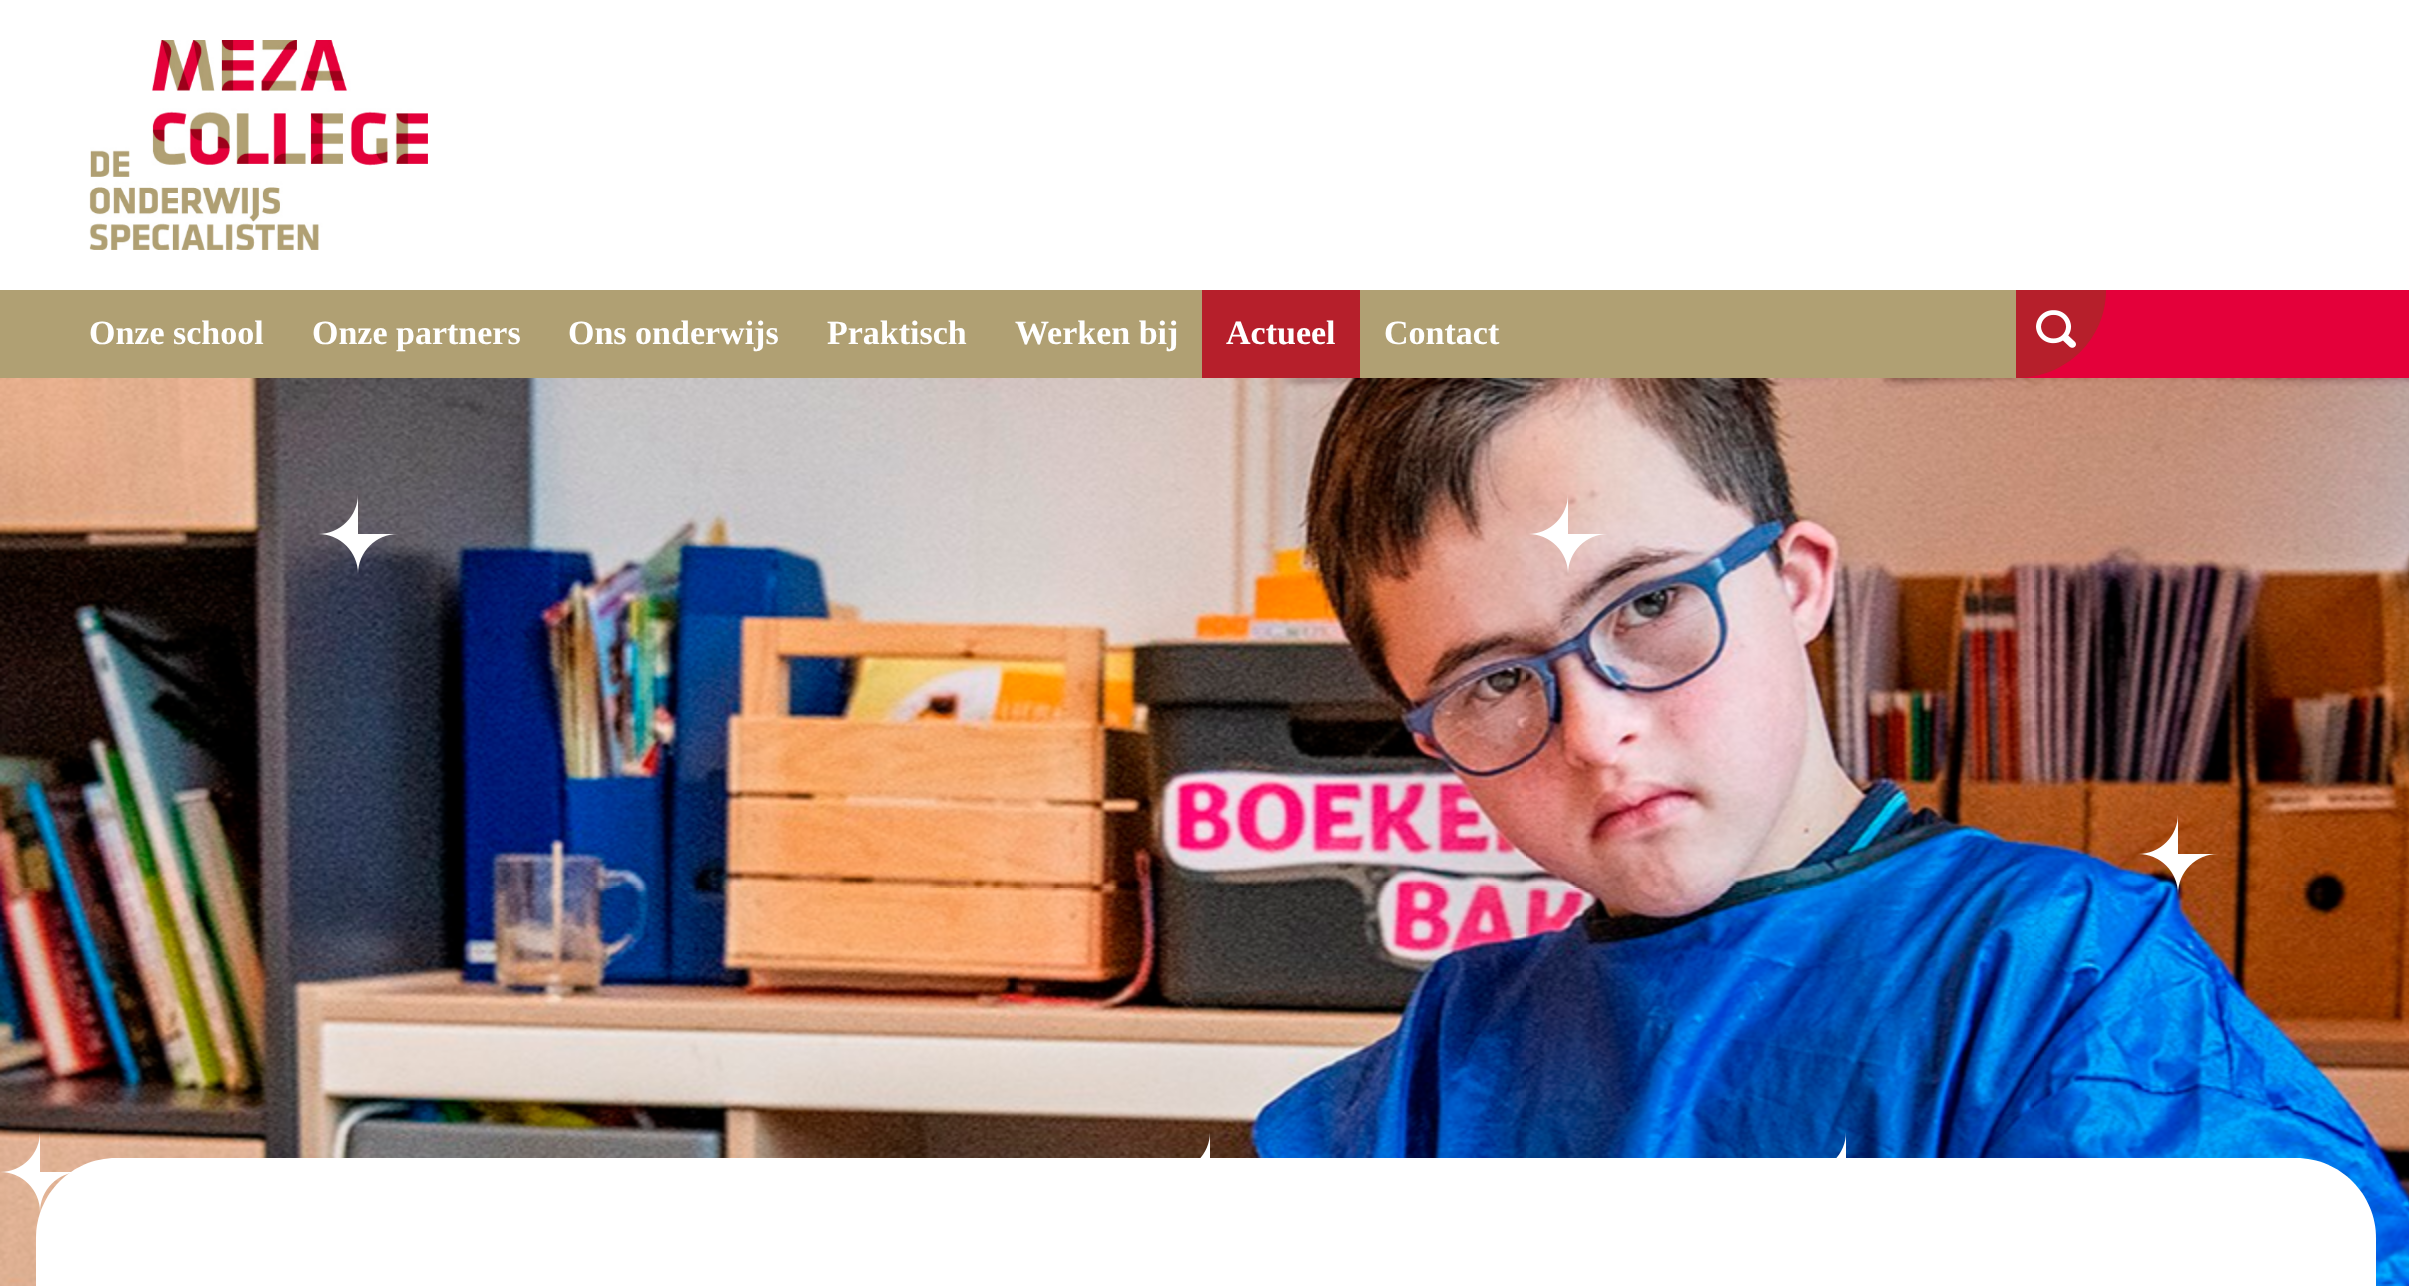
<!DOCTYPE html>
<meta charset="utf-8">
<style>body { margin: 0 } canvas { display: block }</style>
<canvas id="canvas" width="2409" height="1286"></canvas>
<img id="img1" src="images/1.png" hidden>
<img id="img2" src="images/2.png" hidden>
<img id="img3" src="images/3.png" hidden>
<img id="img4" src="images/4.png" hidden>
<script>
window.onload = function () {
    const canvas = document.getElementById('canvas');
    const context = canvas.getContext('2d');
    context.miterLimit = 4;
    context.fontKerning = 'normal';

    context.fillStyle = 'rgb(255, 255, 255)';
    context.fillRect(0, 0, 2409, 1286);
    context.drawImage(document.getElementById('img1'), 89, 40, 339, 210);
    context.fillStyle = 'rgb(176, 160, 115)';
    context.fillRect(0, 290, 2016, 88);
    context.fillStyle = 'rgb(228, 0, 58)';
    context.fillRect(2017, 290, 392, 88);
    context.fillStyle = 'rgb(182, 31, 43)';
    context.fillRect(1202, 290, 158, 88);
    context.beginPath();
    context.moveTo(2016, 290);
    context.lineTo(2106, 290);
    context.bezierCurveTo(2106, 339, 2066, 378, 2016, 378);
    context.closePath();
    context.fill();
    context.drawImage(document.getElementById('img2'), 2036, 310, 40, 38);
    context.drawImage(document.getElementById('img3'), 0, 378, 2409, 908);
    context.drawImage(document.getElementById('img4'), 1, 494, 2217, 718);
    context.fillStyle = 'rgb(255, 255, 255)';
    context.beginPath();
    context.moveTo(116, 1158);
    context.lineTo(2296, 1158);
    context.bezierCurveTo(2340, 1158, 2376, 1194, 2376, 1238);
    context.lineTo(2376, 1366);
    context.lineTo(36, 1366);
    context.lineTo(36, 1238);
    context.bezierCurveTo(36, 1194, 72, 1158, 116, 1158);
    context.closePath();
    context.fill();
    context.font = 'bold 34px Liberation Serif';
    context.fillText('Onze school', 89, 344);
    context.fillText('Onze partners', 312, 344);
    context.fillText('Ons onderwijs', 568, 344);
    context.fillText('Praktisch', 827, 344);
    context.fillText('Werken bij', 1015, 344);
    context.fillText('Actueel', 1226, 344);
    context.fillText('Contact', 1384, 344);
};
</script>
